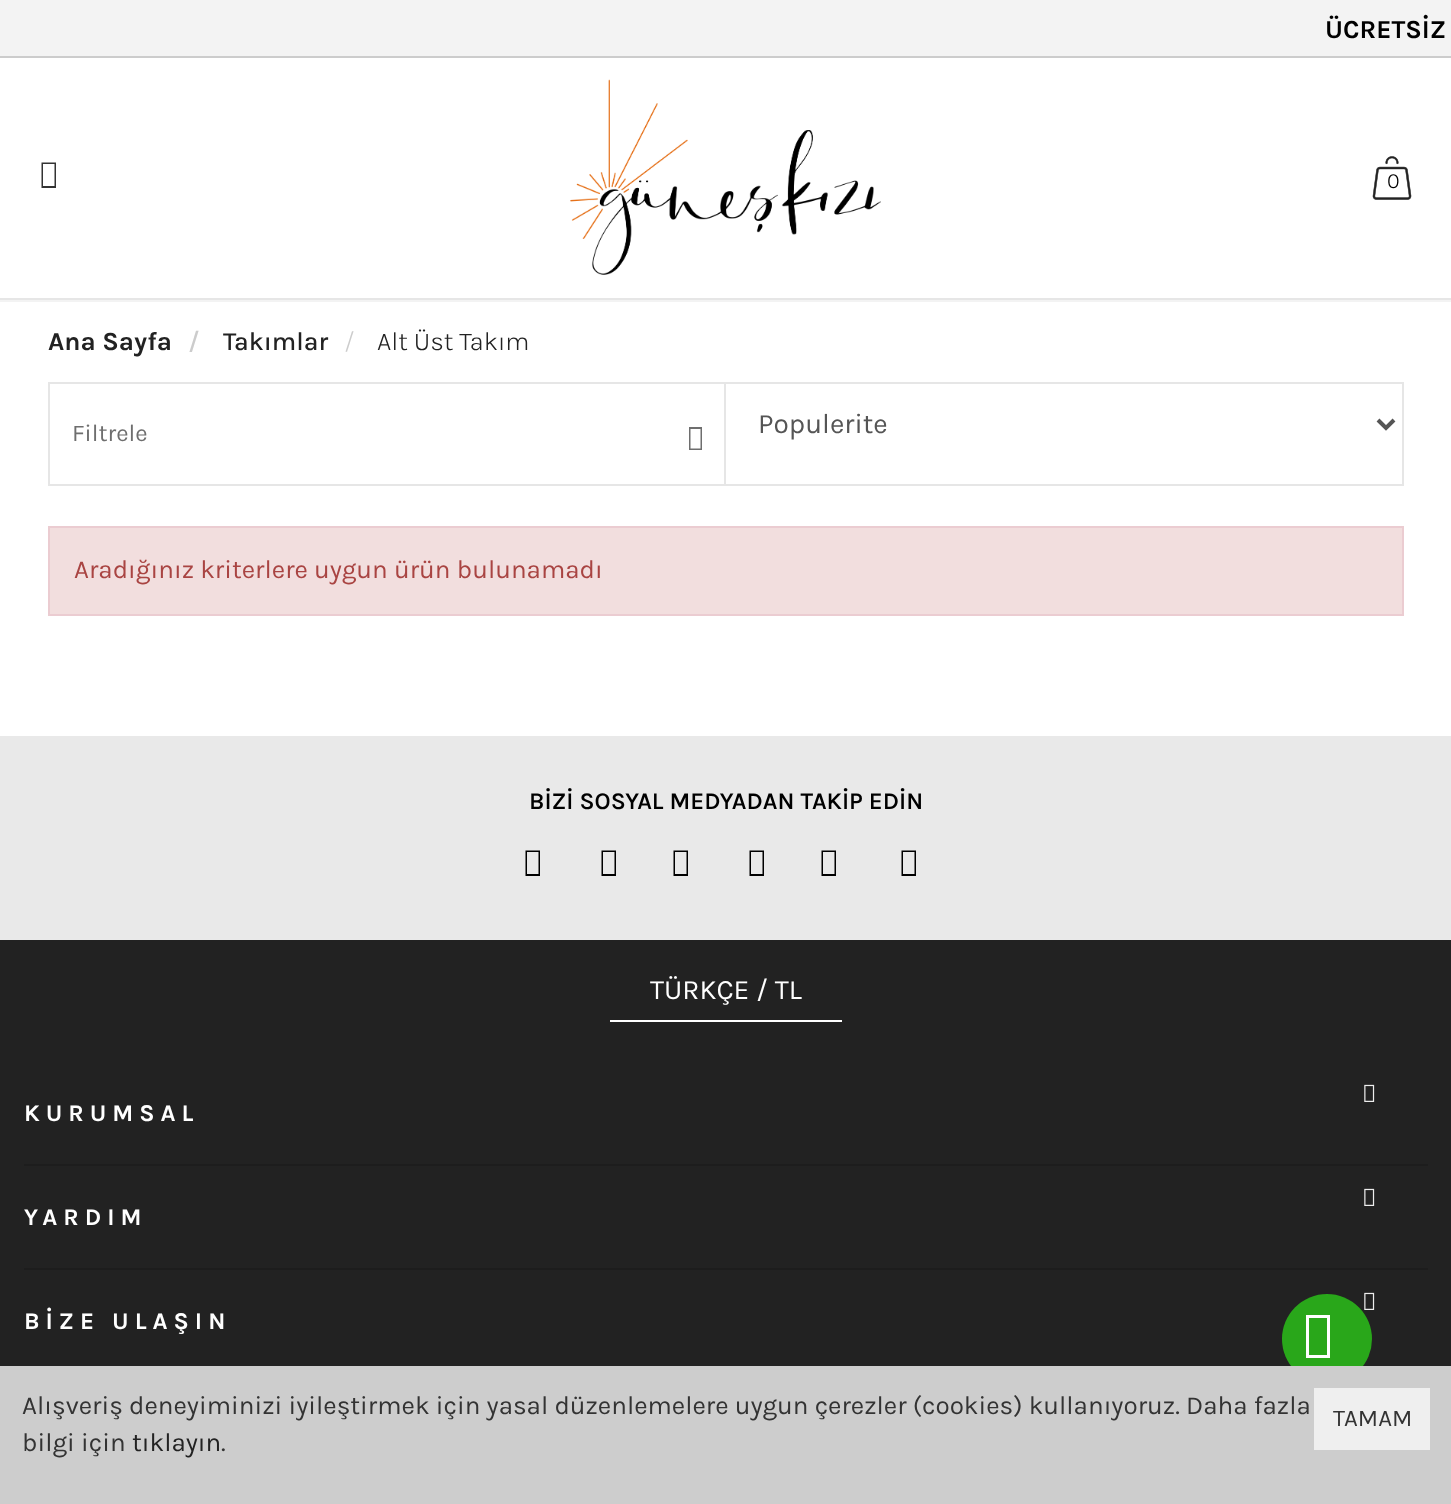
<!DOCTYPE html>
<meta charset="utf-8">
<style>body { margin: 0 } canvas { display: block }</style>
<canvas id="canvas" width="1451" height="1504"></canvas>
<img id="img1" src="images/1.png" hidden>
<img id="img2" src="images/2.png" hidden>
<img id="img3" src="images/3.png" hidden>
<script>
window.onload = function () {
    const canvas = document.getElementById('canvas');
    const context = canvas.getContext('2d');
    context.miterLimit = 4;
    context.fontKerning = 'normal';

    context.fillStyle = 'rgb(255, 255, 255)';
    context.fillRect(0, 0, 1451, 1504);
    context.fillStyle = 'rgb(243, 243, 243)';
    context.fillRect(0, 300, 1451, 2);
    context.fillStyle = 'rgb(230, 230, 230)';
    context.fillRect(0, 298, 1451, 2);
    context.fillStyle = 'rgb(243, 243, 243)';
    context.fillRect(0, 0, 1451, 56);
    context.fillStyle = 'rgb(204, 204, 204)';
    context.fillRect(0, 56, 1451, 2);
    context.fillStyle = 'rgb(51, 51, 51)';
    context.beginPath();
    context.moveTo(41.5, 188);
    context.lineTo(41.5, 162.5);
    context.lineTo(56, 162.5);
    context.lineTo(56, 188);
    context.closePath();
    context.moveTo(43, 186);
    context.lineTo(54.5, 186);
    context.lineTo(54.5, 164);
    context.lineTo(43, 164);
    context.closePath();
    context.fill();
    context.drawImage(document.getElementById('img1'), 570, 79, 311, 196);
    context.drawImage(document.getElementById('img2'), 1372, 156, 40, 44);
    context.strokeStyle = 'rgb(230, 230, 230)';
    context.lineWidth = 2;
    context.strokeRect(49, 383, 1354, 102);
    context.fillStyle = 'rgb(230, 230, 230)';
    context.fillRect(724, 384, 2, 100);
    context.fillStyle = 'rgb(110, 110, 110)';
    context.beginPath();
    context.moveTo(689, 450);
    context.lineTo(689, 427);
    context.lineTo(702, 427);
    context.lineTo(702, 450);
    context.closePath();
    context.moveTo(690.5, 448.5);
    context.lineTo(700.5, 448.5);
    context.lineTo(700.5, 429);
    context.lineTo(690.5, 429);
    context.closePath();
    context.fill();
    context.beginPath();
    context.moveTo(1378, 420);
    context.lineTo(1386, 428);
    context.lineTo(1394, 420);
    context.strokeStyle = 'rgb(85, 85, 85)';
    context.lineWidth = 4;
    context.stroke();
    context.fillStyle = 'rgb(242, 222, 222)';
    context.beginPath();
    context.rect(49, 527, 1354, 88);
    context.fill();
    context.strokeStyle = 'rgb(235, 204, 209)';
    context.lineWidth = 2;
    context.stroke();
    context.fillStyle = 'rgb(233, 233, 233)';
    context.fillRect(0, 736, 1451, 204);
    context.fillStyle = 'rgb(0, 0, 0)';
    context.beginPath();
    context.moveTo(525.5, 876);
    context.lineTo(525.5, 850.5);
    context.lineTo(540, 850.5);
    context.lineTo(540, 876);
    context.closePath();
    context.moveTo(527, 874);
    context.lineTo(538.5, 874);
    context.lineTo(538.5, 852);
    context.lineTo(527, 852);
    context.closePath();
    context.fill();
    context.beginPath();
    context.moveTo(601.5, 876);
    context.lineTo(601.5, 850.5);
    context.lineTo(616, 850.5);
    context.lineTo(616, 876);
    context.closePath();
    context.moveTo(603, 874);
    context.lineTo(614.5, 874);
    context.lineTo(614.5, 852);
    context.lineTo(603, 852);
    context.closePath();
    context.fill();
    context.beginPath();
    context.moveTo(673.5, 876);
    context.lineTo(673.5, 850.5);
    context.lineTo(688, 850.5);
    context.lineTo(688, 876);
    context.closePath();
    context.moveTo(675, 874);
    context.lineTo(686.5, 874);
    context.lineTo(686.5, 852);
    context.lineTo(675, 852);
    context.closePath();
    context.fill();
    context.beginPath();
    context.moveTo(749.5, 876);
    context.lineTo(749.5, 850.5);
    context.lineTo(764, 850.5);
    context.lineTo(764, 876);
    context.closePath();
    context.moveTo(751, 874);
    context.lineTo(762.5, 874);
    context.lineTo(762.5, 852);
    context.lineTo(751, 852);
    context.closePath();
    context.fill();
    context.beginPath();
    context.moveTo(821.5, 876);
    context.lineTo(821.5, 850.5);
    context.lineTo(836, 850.5);
    context.lineTo(836, 876);
    context.closePath();
    context.moveTo(823, 874);
    context.lineTo(834.5, 874);
    context.lineTo(834.5, 852);
    context.lineTo(823, 852);
    context.closePath();
    context.fill();
    context.beginPath();
    context.moveTo(901.5, 876);
    context.lineTo(901.5, 850.5);
    context.lineTo(916, 850.5);
    context.lineTo(916, 876);
    context.closePath();
    context.moveTo(903, 874);
    context.lineTo(914.5, 874);
    context.lineTo(914.5, 852);
    context.lineTo(903, 852);
    context.closePath();
    context.fill();
    context.fillStyle = 'rgb(34, 34, 34)';
    context.fillRect(0, 940, 1451, 426);
    context.fillStyle = 'rgb(255, 255, 255)';
    context.fillRect(610, 1020, 232, 2);
    context.fillStyle = 'rgb(29, 29, 29)';
    context.fillRect(24, 1164, 1404, 2);
    context.drawImage(document.getElementById('img3'), 1364, 1084, 11, 18);
    context.fillRect(24, 1268, 1404, 2);
    context.drawImage(document.getElementById('img3'), 1364, 1188, 11, 18);
    context.drawImage(document.getElementById('img3'), 1364, 1292, 11, 18);
    context.fillStyle = 'rgb(41, 167, 26)';
    context.beginPath();
    context.arc(1327, 1339, 45, 0, 2 * Math.PI);
    context.fill();
    context.fillStyle = 'rgb(205, 205, 205)';
    context.fillRect(0, 1366, 1451, 138);
    context.fillStyle = 'rgb(239, 239, 239)';
    context.fillRect(1314, 1388, 116, 62);
    context.fillStyle = 'rgb(255, 255, 255)';
    context.beginPath();
    context.moveTo(1306, 1358);
    context.lineTo(1306, 1315);
    context.lineTo(1330, 1315);
    context.lineTo(1330, 1358);
    context.closePath();
    context.moveTo(1309, 1355);
    context.lineTo(1327, 1355);
    context.lineTo(1327, 1318);
    context.lineTo(1309, 1318);
    context.closePath();
    context.fill();
    context.font = 'bold 26px Karla';
    context.fillStyle = 'rgb(0, 0, 0)';
    context.fillText('ÜCRETSİZ', 1325, 38);
    context.letterSpacing = '2px';
    context.font = '300 22px Karla';
    context.fillText('0', 1387, 188);
    context.letterSpacing = '0px';
    context.font = 'bold 26px Karla';
    context.fillStyle = 'rgb(34, 34, 34)';
    context.fillText('Ana Sayfa', 48, 350);
    context.font = '500 26px Karla';
    context.fillStyle = 'rgb(204, 204, 204)';
    context.fillText('/', 188, 350);
    context.fillStyle = 'rgb(34, 34, 34)';
    context.fillText('Takımlar', 223, 350);
    context.font = '300 26px Karla';
    context.fillStyle = 'rgb(204, 204, 204)';
    context.fillText('/', 344, 350);
    context.fillStyle = 'rgb(34, 34, 34)';
    context.fillText('Alt Üst Takım', 377, 350);
    context.font = '24px Karla';
    context.fillStyle = 'rgb(110, 110, 110)';
    context.fillText('Filtrele', 72, 441);
    context.font = '28px Karla';
    context.fillStyle = 'rgb(85, 85, 85)';
    context.fillText('Populerite', 758, 433);
    context.font = '26px Karla';
    context.fillStyle = 'rgb(169, 68, 66)';
    context.fillText('Aradığınız kriterlere uygun ürün bulunamadı', 74, 578);
    context.font = '600 24px Karla';
    context.fillStyle = 'rgb(0, 0, 0)';
    context.fillText('BİZİ SOSYAL MEDYADAN TAKİP EDİN', 529, 809);
    context.font = '28px Karla';
    context.fillStyle = 'rgb(255, 255, 255)';
    context.fillText('TÜRKÇE / TL', 650, 999);
    context.letterSpacing = '6px';
    context.font = 'bold 24px Karla';
    context.fillText('KURUMSAL', 24, 1121);
    context.fillText('YARDIM', 24, 1225);
    context.fillText('BİZE ULAŞIN', 24, 1329);
    context.letterSpacing = '0px';
    context.font = '26px Karla';
    context.fillStyle = 'rgb(51, 51, 51)';
    context.fillText('Alışveriş deneyiminizi iyileştirmek için yasal düzenlemelere uygun çerezler (cookies) kullanıyoruz. Daha fazla', 22, 1414);
    context.fillText('bilgi için', 22, 1451);
    context.fillStyle = 'rgb(34, 34, 34)';
    context.fillText('tıklayın', 132, 1451);
    context.fillStyle = 'rgb(51, 51, 51)';
    context.fillText('.', 221, 1451);
    context.font = '24px Karla';
    context.fillText('TAMAM', 1333, 1426);
};
</script>
